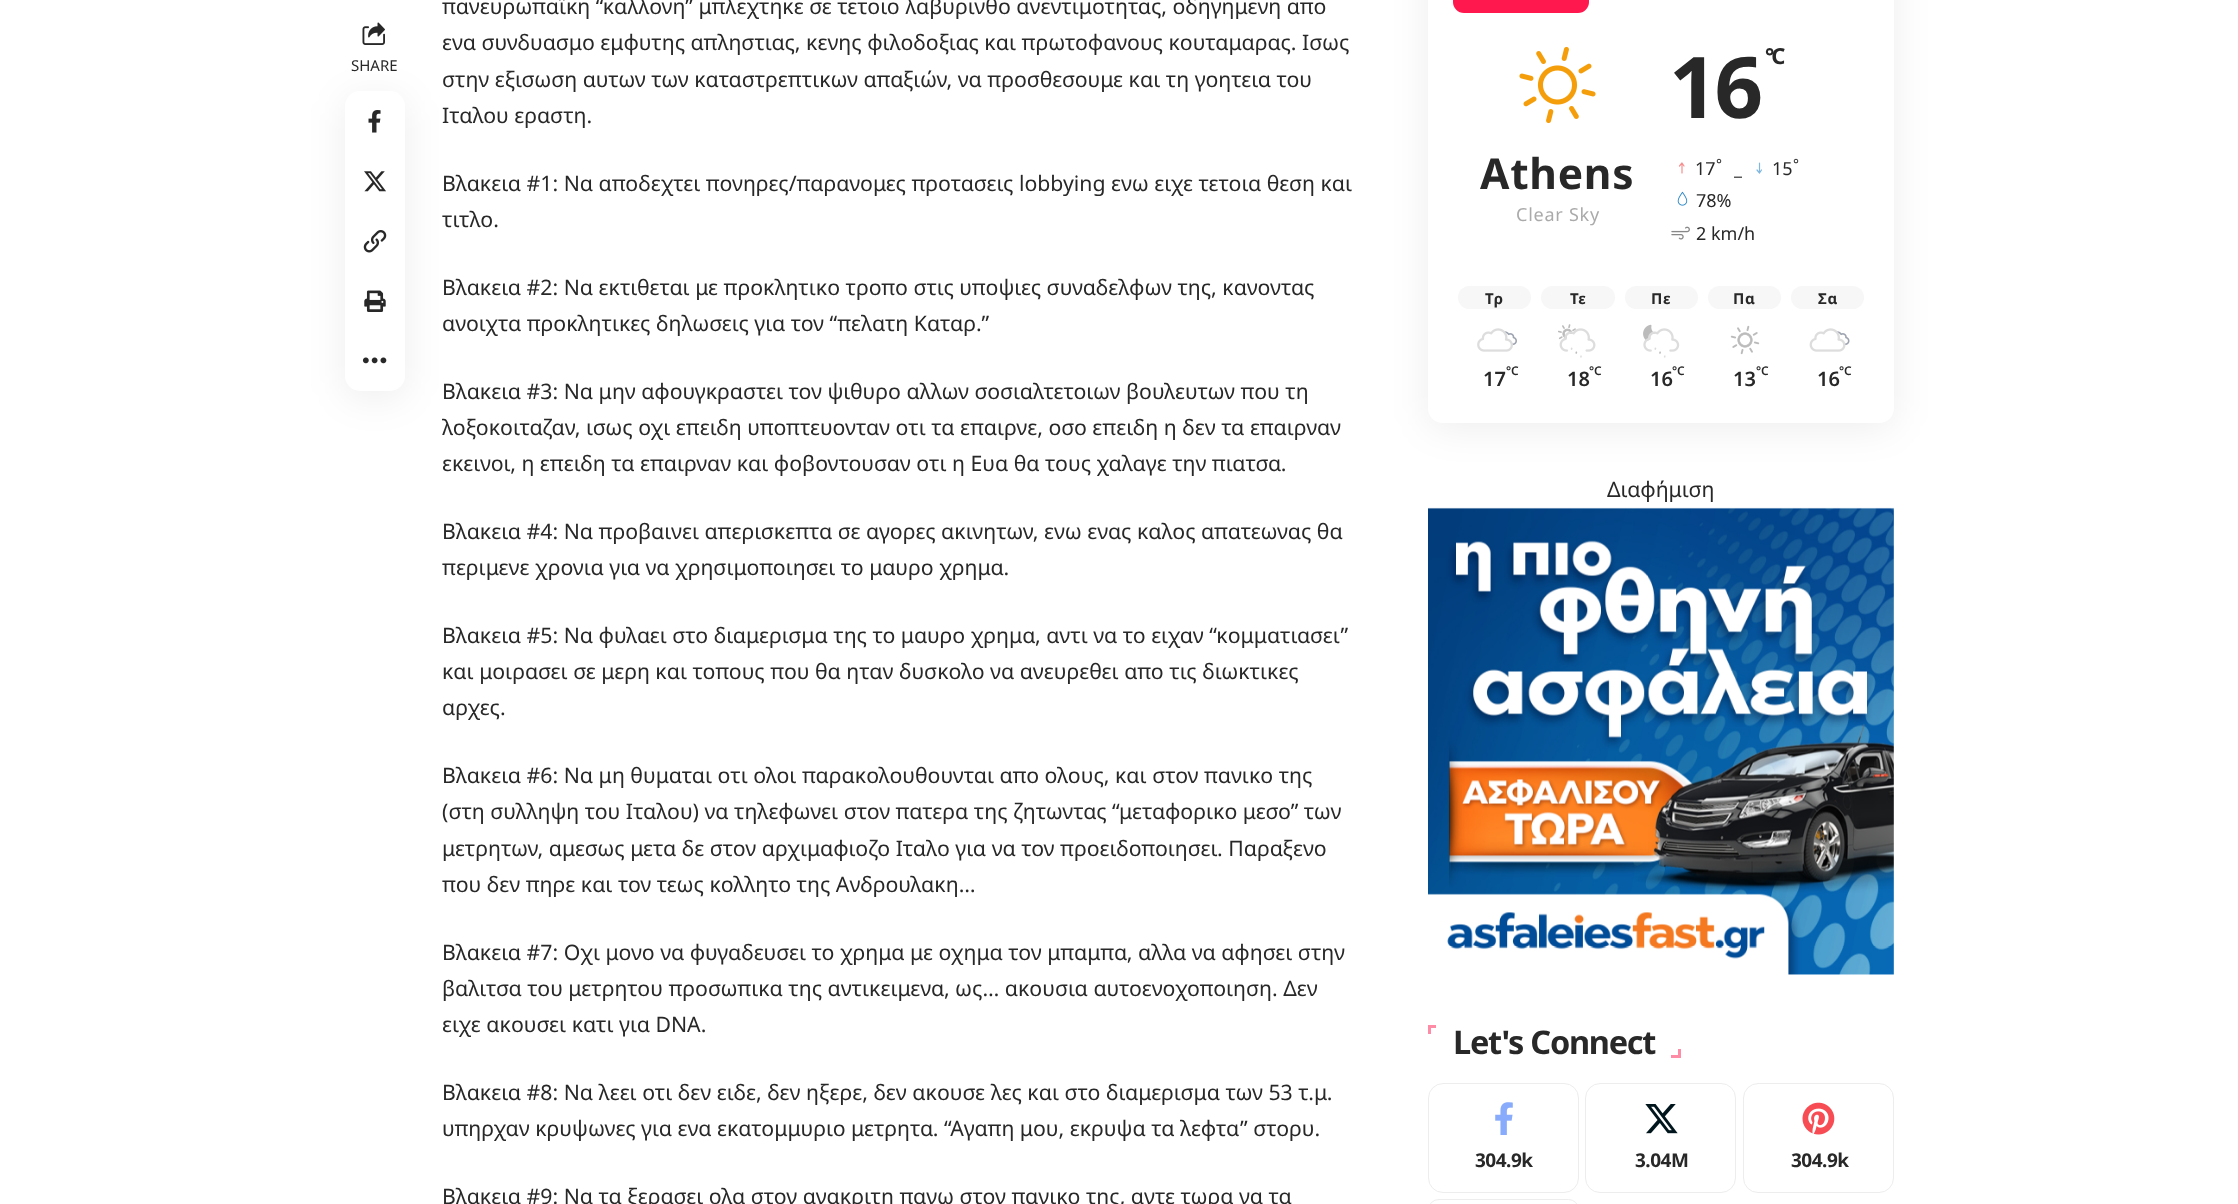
<!DOCTYPE html>
<meta charset="utf-8">
<style>body { margin: 0 } canvas { display: block }</style>
<canvas id="canvas" width="2238" height="1204"></canvas>
<img id="img1" src="images/6.png" hidden>
<img id="img2" src="images/1.png" hidden>
<img id="img3" src="images/2.png" hidden>
<img id="img4" src="images/3.png" hidden>
<img id="img5" src="images/4.png" hidden>
<img id="img6" src="images/5.png" hidden>
<img id="img7" src="images/7.png" hidden>
<img id="img8" src="images/8.png" hidden>
<img id="img9" src="images/9.png" hidden>
<img id="img10" src="images/10.png" hidden>
<img id="img11" src="images/11.png" hidden>
<img id="img12" src="images/12.png" hidden>
<img id="img13" src="images/13.png" hidden>
<img id="img14" src="images/14.png" hidden>
<img id="img15" src="images/15.png" hidden>
<img id="img16" src="images/16.png" hidden>
<img id="img17" src="images/17.png" hidden>
<img id="img18" src="images/18.png" hidden>
<script>
window.onload = function () {
    const canvas = document.getElementById('canvas');
    const context = canvas.getContext('2d');
    context.miterLimit = 4;
    context.fontKerning = 'normal';

    context.fillStyle = 'rgb(255, 255, 255)';
    context.fillRect(0, 0, 2238, 1204);
    context.drawImage(document.getElementById('img1'), 362, 22, 23, 23);
    context.fillStyle = 'rgba(0, 0, 0, 0.07)';
    context.filter = 'blur(19px)';
    context.beginPath();
    context.roundRect(345, 98, 60, 300, 15);
    context.fill();
    context.filter = 'none';
    context.fillStyle = 'rgb(255, 255, 255)';
    context.beginPath();
    context.roundRect(345, 91, 60, 300, 15);
    context.fill();
    context.drawImage(document.getElementById('img2'), 368, 110, 13, 23);
    context.drawImage(document.getElementById('img3'), 364, 171, 22, 21);
    context.drawImage(document.getElementById('img4'), 363, 230, 24, 23);
    context.drawImage(document.getElementById('img5'), 364, 290, 22, 22);
    context.drawImage(document.getElementById('img6'), 362, 357, 25, 7);
    context.save();
    context.beginPath();
    context.moveTo(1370, 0);
    context.lineTo(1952, 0);
    context.lineTo(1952, 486);
    context.lineTo(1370, 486);
    context.closePath();
    context.moveTo(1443, -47);
    context.lineTo(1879, -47);
    context.bezierCurveTo(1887.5, -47, 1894, -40.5, 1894, -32);
    context.lineTo(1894, 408);
    context.bezierCurveTo(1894, 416.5, 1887.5, 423, 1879, 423);
    context.lineTo(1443, 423);
    context.bezierCurveTo(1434.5, 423, 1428, 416.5, 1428, 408);
    context.lineTo(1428, -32);
    context.bezierCurveTo(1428, -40.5, 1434.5, -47, 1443, -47);
    context.closePath();
    context.clip('evenodd');
    context.fillStyle = 'rgba(0, 0, 0, 0.07)';
    context.filter = 'blur(19px)';
    context.beginPath();
    context.roundRect(1428, -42, 466, 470, 15);
    context.fill();
    context.filter = 'none';
    context.restore();
    context.fillStyle = 'rgb(255, 24, 78)';
    context.beginPath();
    context.roundRect(1453, -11, 136, 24, 11);
    context.fill();
    context.drawImage(document.getElementById('img7'), 1519, 46, 77, 78);
    context.beginPath();
    context.moveTo(1682, 173);
    context.lineTo(1682, 163);
    context.lineTo(1679.5, 166);
    context.lineTo(1682, 163);
    context.lineTo(1684, 166);
    context.strokeStyle = 'rgb(246, 144, 144)';
    context.lineWidth = 1.2;
    context.lineCap = 'round';
    context.lineJoin = 'round';
    context.stroke();
    context.beginPath();
    context.moveTo(1759.5, 163);
    context.lineTo(1759.5, 173);
    context.lineTo(1757, 170);
    context.lineTo(1759.5, 173);
    context.lineTo(1761.5, 170);
    context.strokeStyle = 'rgb(128, 183, 222)';
    context.stroke();
    context.drawImage(document.getElementById('img8'), 1677, 191, 11, 15);
    context.drawImage(document.getElementById('img9'), 1671, 226, 19, 14);
    context.fillStyle = 'rgb(247, 247, 247)';
    context.beginPath();
    context.roundRect(1458, 286, 73, 23, 11.5);
    context.fill();
    context.drawImage(document.getElementById('img10'), 1477, 328, 40, 24);
    context.beginPath();
    context.roundRect(1541, 286, 74, 23, 11.5);
    context.fill();
    context.drawImage(document.getElementById('img11'), 1558, 324, 38, 34);
    context.beginPath();
    context.roundRect(1625, 286, 73, 23, 11.5);
    context.fill();
    context.drawImage(document.getElementById('img12'), 1643, 324, 37, 34);
    context.beginPath();
    context.roundRect(1708, 286, 73, 23, 11.5);
    context.fill();
    context.drawImage(document.getElementById('img13'), 1730, 325, 30, 30);
    context.beginPath();
    context.roundRect(1791, 286, 73, 23, 11.5);
    context.fill();
    context.drawImage(document.getElementById('img14'), 1809, 328, 41, 24);
    context.drawImage(document.getElementById('img15'), 1428, 507, 466, 468);
    context.fillStyle = 'rgb(255, 140, 167)';
    context.fillRect(1428, 1025, 8, 3);
    context.fillRect(1428, 1025, 3, 9);
    context.fillRect(1678, 1049, 3, 9);
    context.fillRect(1671, 1055, 9, 3);
    context.beginPath();
    context.roundRect(1428.5, 1083.5, 150, 109, 14.5);
    context.strokeStyle = 'rgb(237, 237, 237)';
    context.lineWidth = 1;
    context.lineJoin = 'miter';
    context.stroke();
    context.drawImage(document.getElementById('img16'), 1495, 1102, 18, 33);
    context.beginPath();
    context.roundRect(1585.5, 1083.5, 150, 109, 14.5);
    context.stroke();
    context.drawImage(document.getElementById('img17'), 1645, 1104, 33, 30);
    context.beginPath();
    context.roundRect(1743.5, 1083.5, 150, 109, 14.5);
    context.stroke();
    context.drawImage(document.getElementById('img18'), 1802, 1102, 33, 33);
    context.beginPath();
    context.roundRect(1428.5, 1199.5, 150, 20, 14.5);
    context.stroke();
    context.font = '15px Noto Sans';
    context.fillStyle = 'rgb(40, 40, 40)';
    context.fillText('SHARE', 351, 71);
    context.font = '21.25px Noto Sans';
    context.fillText('πανευρωπαϊκη “καλλονη” μπλεχτηκε σε τετοιο λαβυρινθο ανεντιμοτητας, οδηγημενη απο', 442, 14);
    context.fillText('ενα συνδυασμο εμφυτης απληστιας, κενης φιλοδοξιας και πρωτοφανους κουταμαρας. Ισως', 442, 50);
    context.fillText('στην εξισωση αυτων των καταστρεπτικων απαξιών, να προσθεσουμε και τη γοητεια του', 442, 87);
    context.fillText('Ιταλου εραστη.', 442, 123);
    context.fillText('Βλακεια #1: Να αποδεχτει πονηρες/παρανομες προτασεις lobbying ενω ειχε τετοια θεση και', 442, 191);
    context.fillText('τιτλο.', 442, 227);
    context.fillText('Βλακεια #2: Να εκτιθεται με προκλητικο τροπο στις υποψιες συναδελφων της, κανοντας', 442, 295);
    context.fillText('ανοιχτα προκλητικες δηλωσεις για τον “πελατη Καταρ.”', 442, 331);
    context.fillText('Βλακεια #3: Να μην αφουγκραστει τον ψιθυρο αλλων σοσιαλτετοιων βουλευτων που τη', 442, 399);
    context.fillText('λοξοκοιταζαν, ισως οχι επειδη υποπτευονταν οτι τα επαιρνε, οσο επειδη η δεν τα επαιρναν', 442, 435);
    context.fillText('εκεινοι, η επειδη τα επαιρναν και φοβοντουσαν οτι η Ευα θα τους χαλαγε την πιατσα.', 442, 471);
    context.fillText('Βλακεια #4: Να προβαινει απερισκεπτα σε αγορες ακινητων, ενω ενας καλος απατεωνας θα', 442, 539);
    context.fillText('περιμενε χρονια για να χρησιμοποιησει το μαυρο χρημα.', 442, 575);
    context.fillText('Βλακεια #5: Να φυλαει στο διαμερισμα της το μαυρο χρημα, αντι να το ειχαν “κομματιασει”', 442, 643);
    context.fillText('και μοιρασει σε μερη και τοπους που θα ηταν δυσκολο να ανευρεθει απο τις διωκτικες', 442, 679);
    context.fillText('αρχες.', 442, 715);
    context.fillText('Βλακεια #6: Να μη θυμαται οτι ολοι παρακολουθουνται απο ολους, και στον πανικο της', 442, 783);
    context.fillText('(στη συλληψη του Ιταλου) να τηλεφωνει στον πατερα της ζητωντας “μεταφορικο μεσο” των', 442, 819);
    context.fillText('μετρητων, αμεσως μετα δε στον αρχιμαφιοζο Ιταλο για να τον προειδοποιησει. Παραξενο', 442, 856);
    context.fillText('που δεν πηρε και τον τεως κολλητο της Ανδρουλακη…', 442, 892);
    context.fillText('Βλακεια #7: Οχι μονο να φυγαδευσει το χρημα με οχημα τον μπαμπα, αλλα να αφησει στην', 442, 960);
    context.fillText('βαλιτσα του μετρητου προσωπικα της αντικειμενα, ως… ακουσια αυτοενοχοποιηση. Δεν', 442, 996);
    context.fillText('ειχε ακουσει κατι για DNA.', 442, 1032);
    context.fillText('Βλακεια #8: Να λεει οτι δεν ειδε, δεν ηξερε, δεν ακουσε λες και στο διαμερισμα των 53 τ.μ.', 442, 1100);
    context.fillText('υπηρχαν κρυψωνες για ενα εκατομμυριο μετρητα. “Αγαπη μου, εκρυψα τα λεφτα” στορυ.', 442, 1136);
    context.fillText('Βλακεια #9: Να τα ξερασει ολα στον ανακριτη πανω στον πανικο της, αντε τωρα να τα', 442, 1204);
    context.letterSpacing = '-3px';
    context.font = 'bold 85px Noto Sans';
    context.fillText('16', 1669, 118);
    context.font = 'bold 22px Noto Sans';
    context.fillText('°C', 1765, 64);
    context.letterSpacing = '0.75px';
    context.font = 'bold 42.5px Noto Sans';
    context.fillText('Athens', 1480, 189);
    context.font = '18px Noto Sans';
    context.fillStyle = 'rgb(170, 170, 170)';
    context.fillText('Clear Sky', 1516, 221);
    context.letterSpacing = '0px';
    context.fillStyle = 'rgb(40, 40, 40)';
    context.fillText('17', 1695, 175);
    context.font = '14px Noto Sans';
    context.fillText('°', 1716, 169);
    context.font = '18px Noto Sans';
    context.fillText('15', 1772, 175);
    context.font = '14px Noto Sans';
    context.fillText('°', 1793, 169);
    context.font = '18px Noto Sans';
    context.fillText('_', 1734, 175);
    context.fillText('78%', 1696, 207);
    context.fillText('2 km/h', 1696, 240);
    context.letterSpacing = '0.75px';
    context.font = 'bold 15px Noto Sans';
    context.fillText('Τρ', 1485, 304);
    context.letterSpacing = '0px';
    context.font = '600 12px Noto Sans';
    context.fillText('°C', 1506, 375);
    context.font = '600 20px Noto Sans';
    context.fillText('17', 1483, 386);
    context.letterSpacing = '0.75px';
    context.font = 'bold 15px Noto Sans';
    context.fillText('Τε', 1570, 304);
    context.letterSpacing = '0px';
    context.font = '600 20px Noto Sans';
    context.fillText('18', 1567, 386);
    context.font = '600 12px Noto Sans';
    context.fillText('°C', 1589, 375);
    context.letterSpacing = '0.75px';
    context.font = 'bold 15px Noto Sans';
    context.fillText('Πε', 1651, 304);
    context.letterSpacing = '0px';
    context.font = '600 20px Noto Sans';
    context.fillText('16', 1650, 386);
    context.font = '600 12px Noto Sans';
    context.fillText('°C', 1672, 375);
    context.letterSpacing = '0.75px';
    context.font = 'bold 15px Noto Sans';
    context.fillText('Πα', 1733, 304);
    context.letterSpacing = '0px';
    context.font = '600 20px Noto Sans';
    context.fillText('13', 1733, 386);
    context.font = '600 12px Noto Sans';
    context.fillText('°C', 1756, 375);
    context.letterSpacing = '0.75px';
    context.font = 'bold 15px Noto Sans';
    context.fillText('Σα', 1818, 304);
    context.letterSpacing = '0px';
    context.font = '600 20px Noto Sans';
    context.fillText('16', 1817, 386);
    context.font = '600 12px Noto Sans';
    context.fillText('°C', 1839, 375);
    context.font = '21.25px Noto Sans';
    context.fillText('Διαφήμιση', 1607, 497);
    context.letterSpacing = '-1.25px';
    context.font = 'bold 32.5px Noto Sans';
    context.fillText('Let\'s Connect', 1453, 1054);
    context.letterSpacing = '-0.5px';
    context.font = 'bold 19px Noto Sans';
    context.fillText('304.9k', 1475, 1167);
    context.fillText('3.04M', 1635, 1167);
    context.fillText('304.9k', 1791, 1167);
};
</script>
